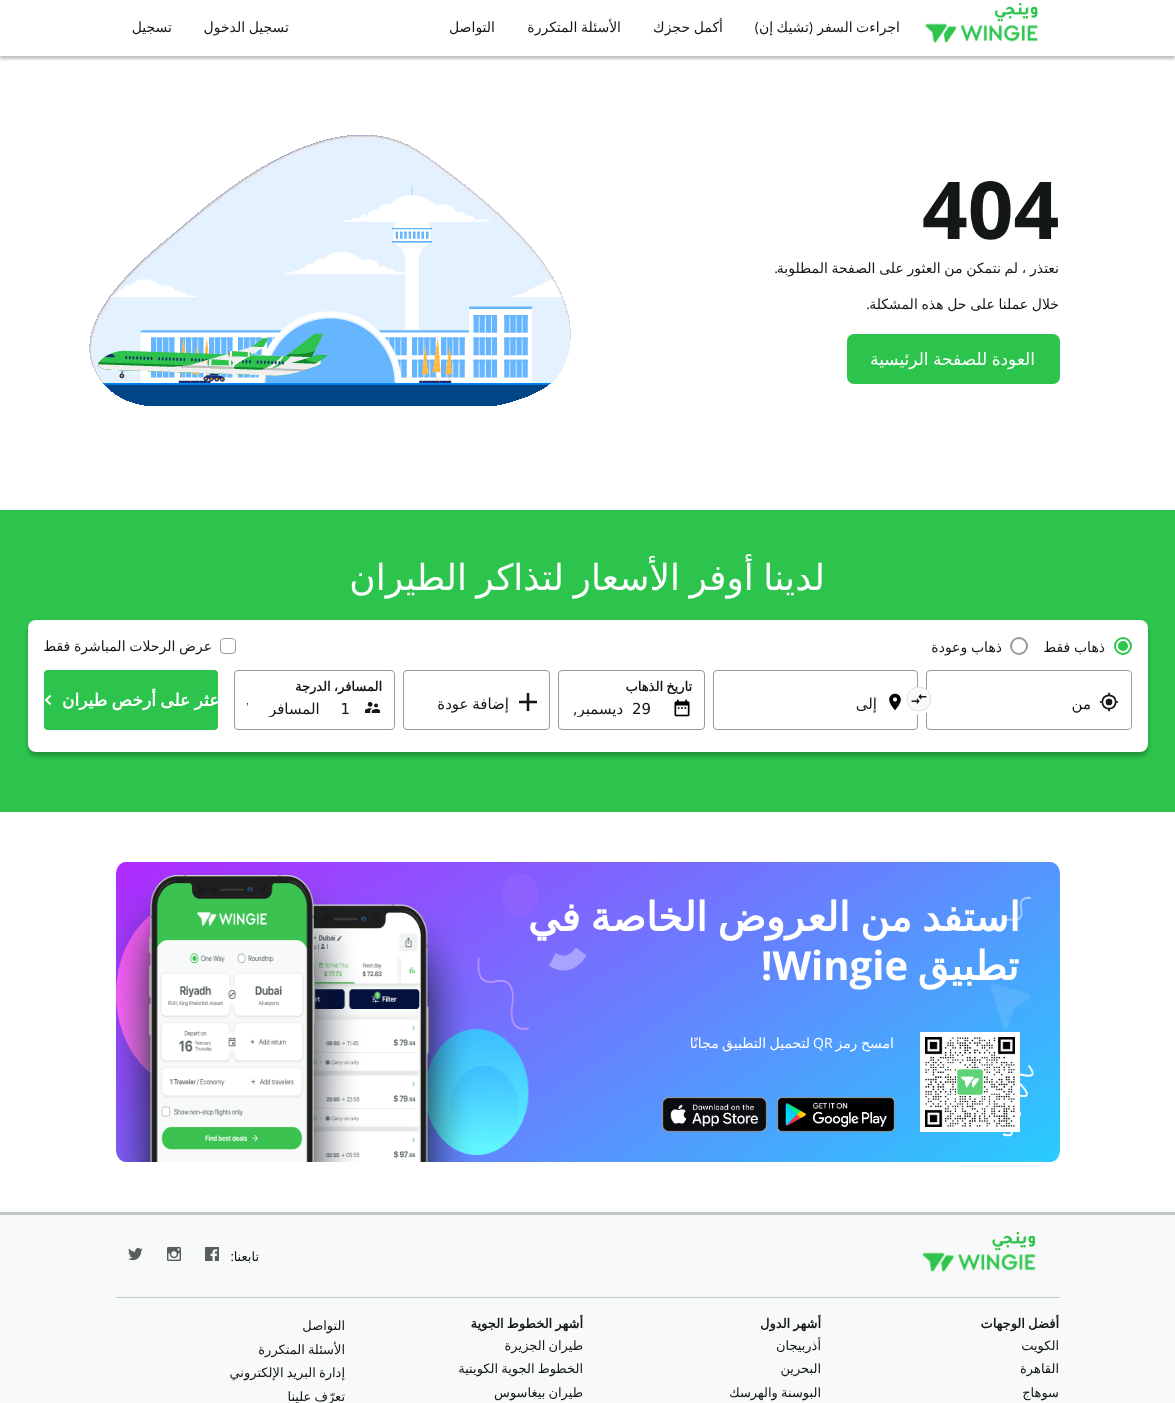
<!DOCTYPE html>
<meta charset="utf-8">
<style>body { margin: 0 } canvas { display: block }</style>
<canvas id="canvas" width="1175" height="1403"></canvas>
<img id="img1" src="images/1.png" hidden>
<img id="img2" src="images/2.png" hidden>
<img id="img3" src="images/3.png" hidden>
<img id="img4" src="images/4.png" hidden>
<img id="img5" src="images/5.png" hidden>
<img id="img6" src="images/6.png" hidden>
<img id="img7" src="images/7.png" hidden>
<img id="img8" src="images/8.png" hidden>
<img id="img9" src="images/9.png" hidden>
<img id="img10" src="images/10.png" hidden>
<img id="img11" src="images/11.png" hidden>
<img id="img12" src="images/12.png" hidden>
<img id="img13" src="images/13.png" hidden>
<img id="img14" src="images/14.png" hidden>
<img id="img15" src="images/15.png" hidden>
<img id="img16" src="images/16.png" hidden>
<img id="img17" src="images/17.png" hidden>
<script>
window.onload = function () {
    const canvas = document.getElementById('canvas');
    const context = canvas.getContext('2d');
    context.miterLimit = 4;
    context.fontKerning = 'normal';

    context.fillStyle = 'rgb(255, 255, 255)';
    context.fillRect(0, 0, 1175, 1403);
    context.save();
    context.beginPath();
    context.rect(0, 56, 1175, 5);
    context.clip();
    context.fillStyle = 'rgba(0, 0, 0, 0.25)';
    context.filter = 'blur(1.5px)';
    context.beginPath();
    context.rect(0, 3, 1175, 56);
    context.fill();
    context.filter = 'none';
    context.restore();
    context.drawImage(document.getElementById('img1'), 925, 3, 113, 40);
    context.fillStyle = 'rgb(45, 196, 77)';
    context.beginPath();
    context.roundRect(847, 334, 213, 50, 7);
    context.fill();
    context.drawImage(document.getElementById('img2'), 89, 135, 482, 271);
    context.fillRect(0, 510, 1175, 302);
    context.fillStyle = 'rgba(0, 0, 0, 0.25)';
    context.filter = 'blur(2px)';
    context.beginPath();
    context.roundRect(28, 624, 1120, 132, 8);
    context.fill();
    context.filter = 'none';
    context.fillStyle = 'rgb(255, 255, 255)';
    context.beginPath();
    context.roundRect(28, 620, 1120, 132, 8);
    context.fill();
    context.beginPath();
    context.arc(1123, 646, 8, 0, 2 * Math.PI);
    context.strokeStyle = 'rgb(45, 196, 77)';
    context.lineWidth = 2;
    context.stroke();
    context.fillStyle = 'rgb(45, 196, 77)';
    context.beginPath();
    context.arc(1123, 646, 5, 0, 2 * Math.PI);
    context.fill();
    context.beginPath();
    context.arc(1019, 646, 8, 0, 2 * Math.PI);
    context.strokeStyle = 'rgb(147, 157, 154)';
    context.stroke();
    context.beginPath();
    context.roundRect(220.5, 638.5, 15, 15, 3.5);
    context.lineWidth = 1;
    context.stroke();
    context.beginPath();
    context.roundRect(926.5, 670.5, 205, 59, 3.5);
    context.stroke();
    context.drawImage(document.getElementById('img3'), 1099, 692, 20, 20);
    context.beginPath();
    context.roundRect(713.5, 670.5, 204, 59, 3.5);
    context.stroke();
    context.fillStyle = 'rgb(255, 255, 255)';
    context.beginPath();
    context.arc(919.5, 702.5, 12.5, 0, 2 * Math.PI);
    context.fill();
    context.drawImage(document.getElementById('img4'), 906, 686, 26, 26);
    context.drawImage(document.getElementById('img5'), 889, 693, 12, 18);
    context.beginPath();
    context.roundRect(558.5, 670.5, 146, 59, 3.5);
    context.stroke();
    context.drawImage(document.getElementById('img6'), 674, 699, 16, 18);
    context.beginPath();
    context.roundRect(403.5, 670.5, 146, 59, 3.5);
    context.stroke();
    context.drawImage(document.getElementById('img7'), 519, 693, 18, 18);
    context.beginPath();
    context.roundRect(234.5, 670.5, 160, 59, 3.5);
    context.stroke();
    context.drawImage(document.getElementById('img8'), 365, 702, 15, 11);
    context.fillStyle = 'rgb(45, 196, 77)';
    context.beginPath();
    context.roundRect(44, 670, 174, 60, 4);
    context.fill();
    context.drawImage(document.getElementById('img9'), 44, 694, 8, 11);
    context.drawImage(document.getElementById('img10'), 116, 862, 944, 300);
    context.drawImage(document.getElementById('img11'), 920, 1032, 100, 100);
    context.drawImage(document.getElementById('img12'), 777, 1097, 118, 35);
    context.drawImage(document.getElementById('img13'), 662, 1097, 105, 35);
    context.fillStyle = 'rgb(248, 250, 249)';
    context.fillRect(0, 1215, 1175, 188);
    context.fillStyle = 'rgb(194, 202, 200)';
    context.fillRect(0, 1212, 1175, 3);
    context.drawImage(document.getElementById('img14'), 922, 1232, 114, 40);
    context.drawImage(document.getElementById('img15'), 205, 1247, 14, 14);
    context.drawImage(document.getElementById('img16'), 167, 1247, 14, 14);
    context.drawImage(document.getElementById('img17'), 128, 1248, 15, 13);
    context.fillRect(116, 1297, 944, 1);
    context.wordSpacing = '-1px';
    context.direction = 'rtl';
    context.font = '14px DejaVu Sans';
    context.fillStyle = 'rgb(19, 23, 23)';
    context.fillText('اجراءت السفر', 900, 32);
    context.wordSpacing = '0px';
    context.font = '14px Open Sans';
    context.fillText('(', 813, 32);
    context.wordSpacing = '-1px';
    context.font = '14px DejaVu Sans';
    context.fillText('تشيك إن', 809, 32);
    context.wordSpacing = '0px';
    context.font = '14px Open Sans';
    context.fillText(')', 759, 32);
    context.wordSpacing = '-0.75px';
    context.font = '14px DejaVu Sans';
    context.fillText('أكمل حجزك', 723, 32);
    context.fillText('الأسئلة المتكررة', 621, 32);
    context.wordSpacing = '0px';
    context.fillText('التواصل', 495, 32);
    context.wordSpacing = '-0.75px';
    context.fillText('تسجيل الدخول', 289, 32);
    context.wordSpacing = '0px';
    context.fillText('تسجيل', 172, 32);
    context.direction = 'ltr';
    context.font = 'bold 80px Open Sans';
    context.fillText('404', 922, 239);
    context.wordSpacing = '-0.75px';
    context.direction = 'rtl';
    context.font = '14px DejaVu Sans';
    context.fillText('نعتذر ، لم نتمكن من العثور على الصفحة المطلوبة', 1059, 273);
    context.wordSpacing = '0px';
    context.font = '14px Open Sans';
    context.fillText('.', 778, 273);
    context.wordSpacing = '-0.75px';
    context.font = '14px DejaVu Sans';
    context.fillText('خلال عملنا على حل هذه المشكلة', 1059, 309);
    context.wordSpacing = '0px';
    context.font = '14px Open Sans';
    context.fillText('.', 870, 309);
    context.wordSpacing = '-1px';
    context.font = '17px DejaVu Sans';
    context.fillStyle = 'rgb(255, 255, 255)';
    context.fillText('العودة للصفحة الرئيسية', 1035, 365);
    context.wordSpacing = '-2px';
    context.font = '36px DejaVu Sans';
    context.fillText('لدينا أوفر الأسعار لتذاكر الطيران', 825, 590);
    context.wordSpacing = '-0.75px';
    context.font = '14px DejaVu Sans';
    context.fillStyle = 'rgb(19, 23, 23)';
    context.fillText('ذهاب فقط', 1105, 652);
    context.fillText('ذهاب وعودة', 1002, 652);
    context.fillText('عرض الرحلات المباشرة فقط', 212, 651);
    context.wordSpacing = '0px';
    context.font = '15px DejaVu Sans';
    context.fillText('من', 1091, 709);
    context.fillText('إلى', 877, 709);
    context.save();
    context.beginPath();
    context.roundRect(626, 679, 66, 15, 4);
    context.clip();
    context.wordSpacing = '-1px';
    context.font = 'bold 13px DejaVu Sans';
    context.fillText('تاريخ الذهاب', 692, 691);
    context.restore();
    context.save();
    context.beginPath();
    context.rect(571, 699, 97, 18);
    context.clip();
    context.wordSpacing = '4px';
    context.fillText('29 ديسمبر,', 651, 714);
    context.restore();
    context.wordSpacing = '-1px';
    context.fillText('إضافة عودة', 509, 709);
    context.font = 'bold 13px DejaVu Sans';
    context.fillText('المسافر، الدرجة', 382, 691);
    context.save();
    context.beginPath();
    context.rect(247, 699, 111, 18);
    context.clip();
    context.wordSpacing = '16px';
    context.font = '15px DejaVu Sans';
    context.fillText('1 المسافر /', 350, 714);
    context.restore();
    context.font = 'bold 17px DejaVu Sans';
    context.fillStyle = 'rgb(255, 255, 255)';
    context.fillText('اعثر على أرخص طيران', 224, 706);
    context.wordSpacing = '-2.5px';
    context.font = 'bold 40px DejaVu Sans';
    context.fillText('استفد من العروض الخاصة في', 1020, 931);
    context.wordSpacing = '0px';
    context.fillText('تطبيق', 1019, 980);
    context.direction = 'ltr';
    context.font = 'bold 40px Open Sans';
    context.fillText('!Wingie', 761, 980);
    context.wordSpacing = '-0.75px';
    context.direction = 'rtl';
    context.font = '14px DejaVu Sans';
    context.fillText('امسح رمز', 894, 1048);
    context.wordSpacing = '0px';
    context.direction = 'ltr';
    context.font = '14px Open Sans';
    context.fillText('QR', 813, 1048);
    context.wordSpacing = '-1px';
    context.direction = 'rtl';
    context.font = '14px DejaVu Sans';
    context.fillText('لتحميل التطبيق مجانًا', 810, 1048);
    context.wordSpacing = '0px';
    context.font = '13px DejaVu Sans';
    context.fillStyle = 'rgb(19, 23, 23)';
    context.fillText('تابعنا', 259, 1261);
    context.font = '13px Open Sans';
    context.fillText(':', 234, 1261);
    context.wordSpacing = '-1px';
    context.font = 'bold 13px DejaVu Sans';
    context.fillText('أفضل الوجهات', 1059, 1328);
    context.wordSpacing = '0px';
    context.font = '13px DejaVu Sans';
    context.fillText('الكويت', 1059, 1350);
    context.fillText('القاهرة', 1059, 1373);
    context.fillText('سوهاج', 1059, 1397);
    context.wordSpacing = '-1px';
    context.font = 'bold 13px DejaVu Sans';
    context.fillText('أشهر الدول', 821, 1328);
    context.wordSpacing = '0px';
    context.font = '13px DejaVu Sans';
    context.fillText('أذربيجان', 821, 1350);
    context.fillText('البحرين', 821, 1373);
    context.wordSpacing = '-1px';
    context.fillText('البوسنة والهرسك', 821, 1397);
    context.font = 'bold 13px DejaVu Sans';
    context.fillText('أشهر الخطوط الجوية', 583, 1328);
    context.font = '13px DejaVu Sans';
    context.fillText('طيران الجزيرة', 583, 1350);
    context.fillText('الخطوط الجوية الكويتية', 583, 1373);
    context.fillText('طيران بيغاسوس', 583, 1397);
    context.wordSpacing = '0px';
    context.fillText('التواصل', 345, 1330);
    context.wordSpacing = '-1px';
    context.fillText('الأسئلة المتكررة', 345, 1354);
    context.fillText('إدارة البريد الإلكتروني', 345, 1377);
    context.fillText('تعرّف علينا', 345, 1401);
};
</script>
